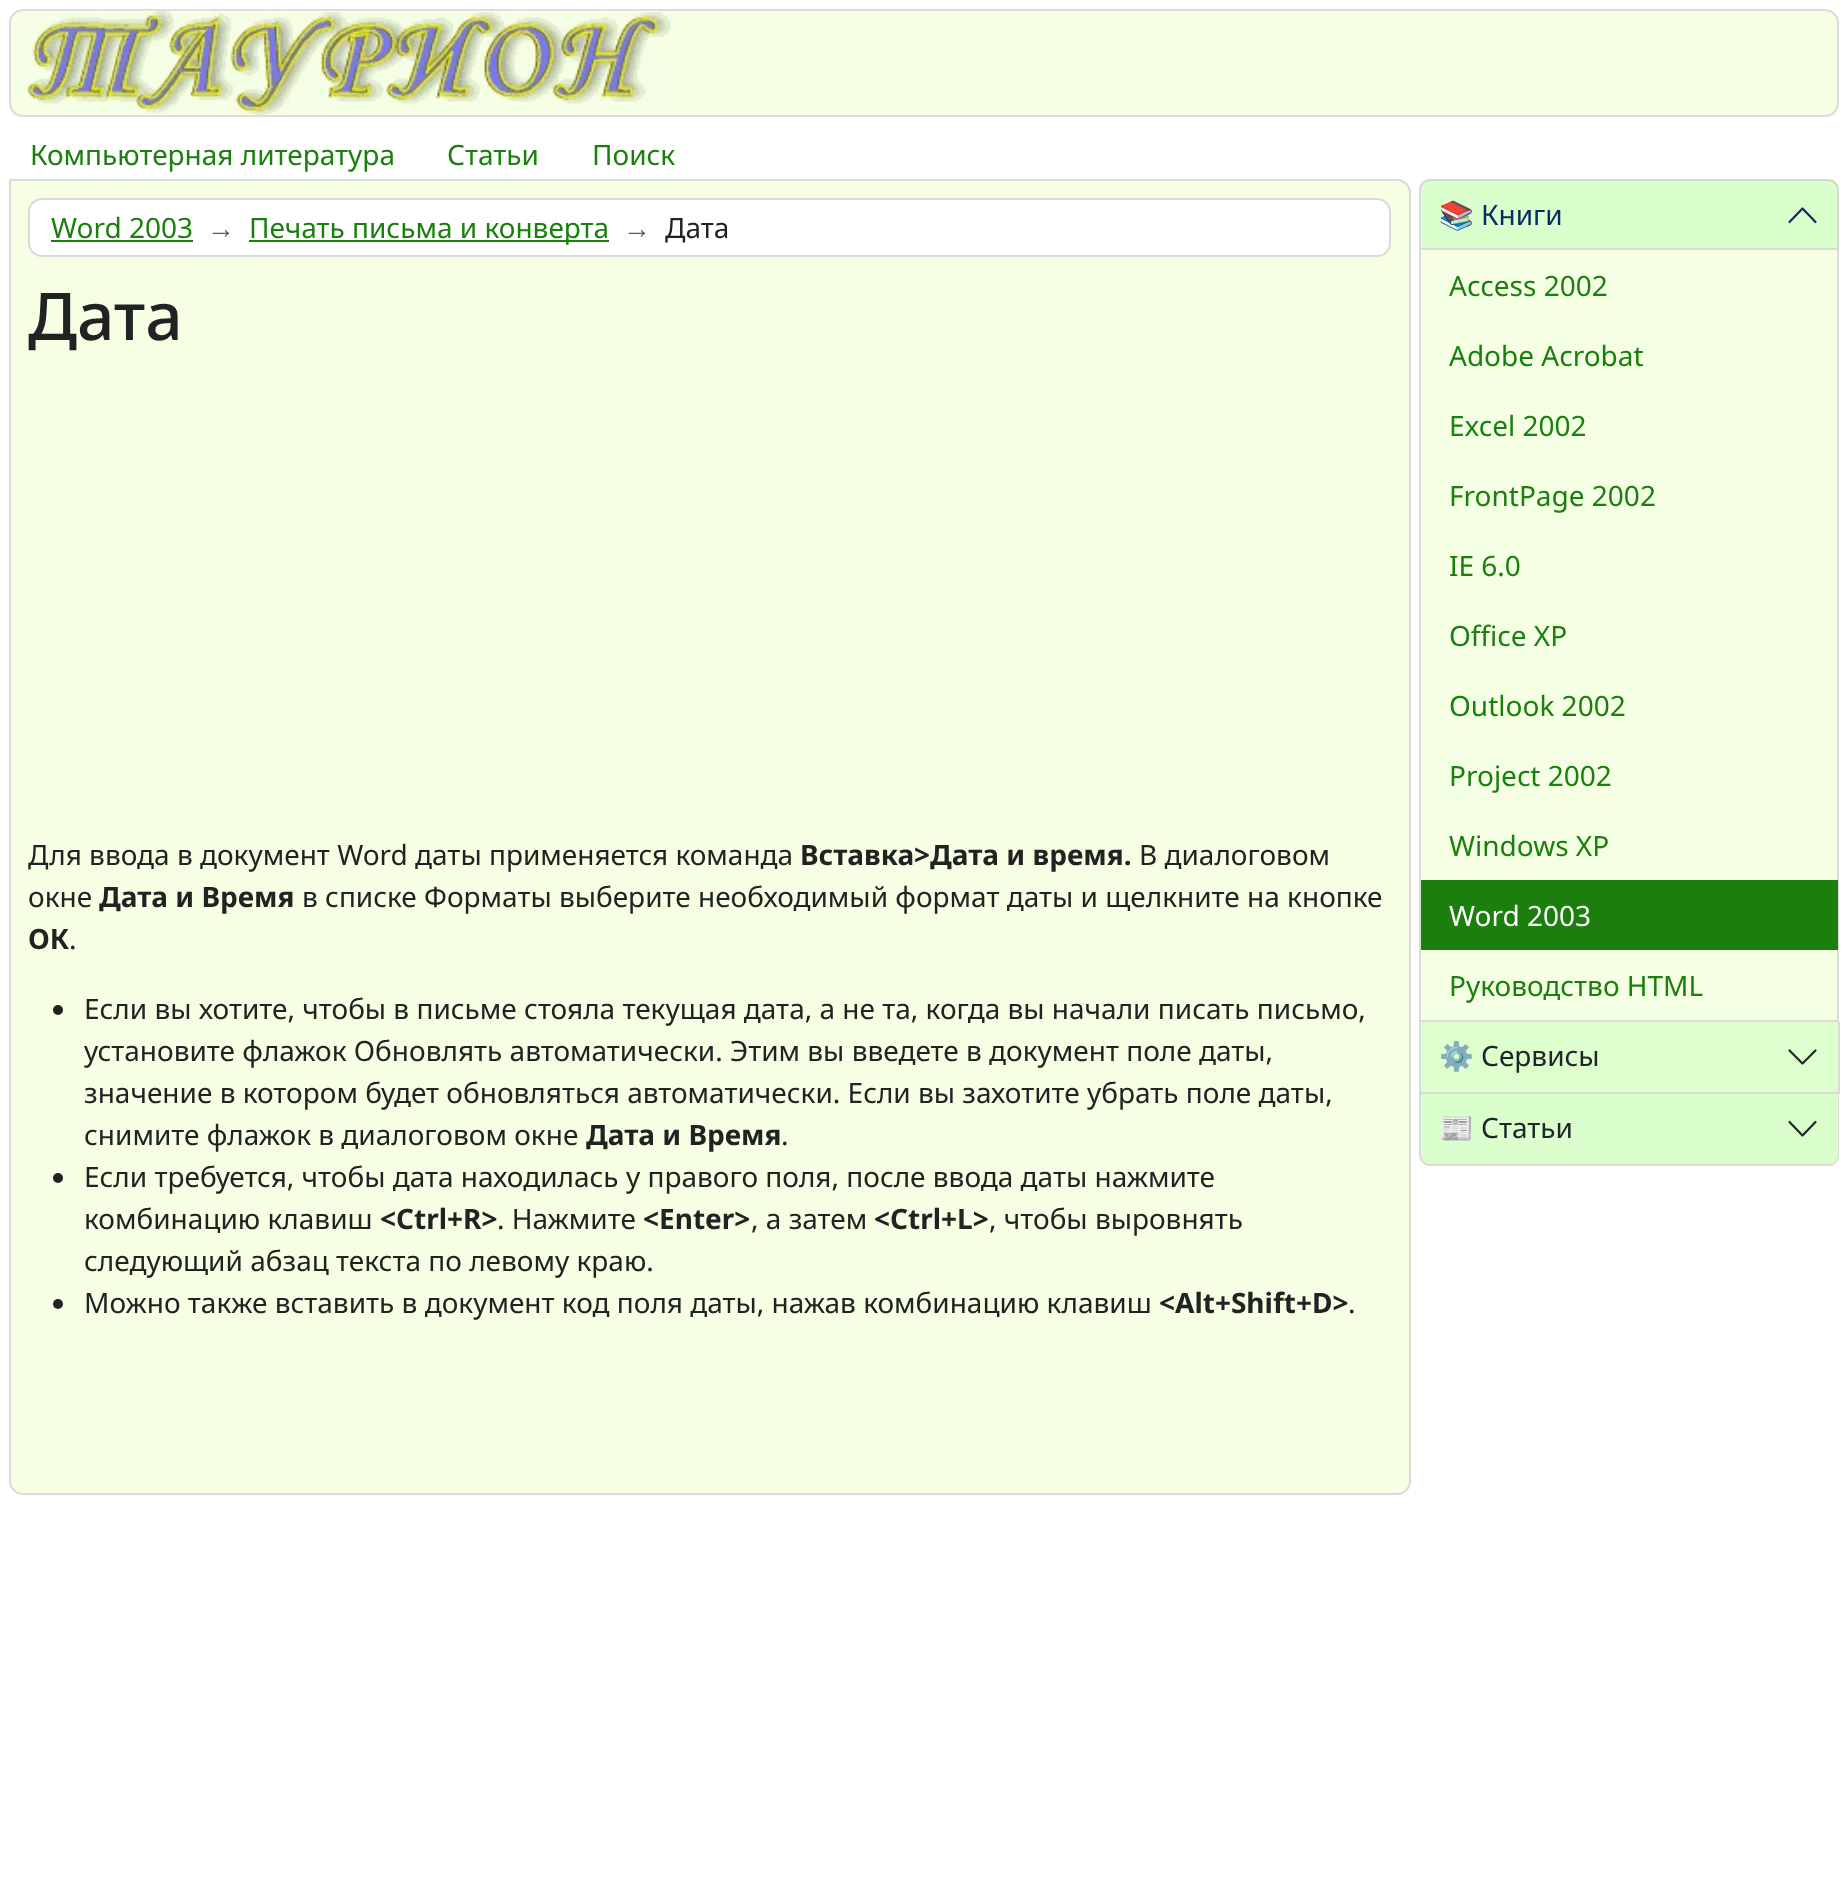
<!DOCTYPE html>
<meta charset="utf-8">
<style>body { margin: 0 } canvas { display: block }</style>
<canvas id="canvas" width="1848" height="1888"></canvas>
<img id="img1" src="images/1.png" hidden>
<script>
window.onload = function () {
    const canvas = document.getElementById('canvas');
    const context = canvas.getContext('2d');
    context.miterLimit = 4;
    context.fontKerning = 'normal';

    context.fillStyle = 'rgb(255, 255, 255)';
    context.fillRect(0, 0, 1848, 1888);
    context.fillStyle = 'rgb(244, 255, 228)';
    context.beginPath();
    context.roundRect(10, 10, 1828, 106, 13);
    context.fill();
    context.strokeStyle = 'rgb(218, 218, 218)';
    context.lineWidth = 2;
    context.stroke();
    context.drawImage(document.getElementById('img1'), 10, 10, 664, 106);
    context.beginPath();
    context.roundRect(10, 180, 1400, 1314, [0, 13, 13, 13]);
    context.fill();
    context.stroke();
    context.fillStyle = 'rgb(255, 255, 255)';
    context.beginPath();
    context.roundRect(29, 199, 1361, 57, 13);
    context.fill();
    context.stroke();
    context.fillStyle = 'rgb(26, 127, 12)';
    context.fillRect(51, 240, 142, 2);
    context.fillRect(249, 240, 360, 2);
    context.fillStyle = 'rgb(34, 34, 34)';
    context.beginPath();
    context.arc(58, 1010, 5, 0, 2 * Math.PI);
    context.fill();
    context.beginPath();
    context.arc(58, 1178, 5, 0, 2 * Math.PI);
    context.fill();
    context.beginPath();
    context.arc(58, 1304, 5, 0, 2 * Math.PI);
    context.fill();
    context.fillStyle = 'rgb(244, 255, 228)';
    context.beginPath();
    context.roundRect(1420, 180, 418, 841, [10, 10, 0, 0]);
    context.fill();
    context.stroke();
    context.fillStyle = 'rgba(0, 255, 0, 0.1)';
    context.beginPath();
    context.roundRect(1421, 180, 417, 70, [9, 9, 0, 0]);
    context.fill();
    context.fillStyle = 'rgb(218, 218, 218)';
    context.fillRect(1421, 248, 417, 2);
    context.beginPath();
    context.moveTo(1815.5, 222);
    context.lineTo(1802.5, 208.5);
    context.lineTo(1789.5, 222);
    context.strokeStyle = 'rgb(5, 44, 101)';
    context.lineWidth = 2.2;
    context.lineCap = 'round';
    context.lineJoin = 'round';
    context.stroke();
    context.fillStyle = 'rgb(26, 127, 12)';
    context.fillRect(1421, 880, 417, 70);
    context.fillStyle = 'rgb(218, 218, 218)';
    context.fillRect(1838, 1022, 2, 72);
    context.fillRect(1419, 1092, 420, 2);
    context.fillRect(1419, 1022, 2, 72);
    context.fillStyle = 'rgb(220, 255, 205)';
    context.fillRect(1421, 1022, 417, 70);
    context.beginPath();
    context.moveTo(1789.5, 1050.5);
    context.lineTo(1802.5, 1063.5);
    context.lineTo(1815.5, 1050.5);
    context.strokeStyle = 'rgb(33, 37, 41)';
    context.stroke();
    context.fillStyle = 'rgb(244, 255, 228)';
    context.beginPath();
    context.roundRect(1419, 1094, 420, 72, [0, 0, 11, 11]);
    context.fill();
    context.fillStyle = 'rgb(218, 218, 218)';
    context.beginPath();
    context.moveTo(1419, 1094);
    context.lineTo(1839, 1094);
    context.lineTo(1839, 1155);
    context.bezierCurveTo(1839, 1161, 1835, 1166, 1829, 1166);
    context.lineTo(1430, 1166);
    context.bezierCurveTo(1424, 1166, 1419, 1161, 1419, 1155);
    context.closePath();
    context.moveTo(1421, 1094);
    context.lineTo(1838, 1094);
    context.lineTo(1838, 1155);
    context.bezierCurveTo(1838, 1160, 1834, 1164, 1829, 1164);
    context.lineTo(1430, 1164);
    context.bezierCurveTo(1425, 1164, 1421, 1160, 1421, 1155);
    context.closePath();
    context.fill('evenodd');
    context.fillStyle = 'rgba(0, 255, 0, 0.1)';
    context.beginPath();
    context.roundRect(1421, 1094, 417, 70, [0, 0, 9, 9]);
    context.fill();
    context.beginPath();
    context.moveTo(1789.5, 1122);
    context.lineTo(1802.5, 1135.5);
    context.lineTo(1815.5, 1122);
    context.stroke();
    context.font = '28px Noto Sans';
    context.fillStyle = 'rgb(26, 127, 12)';
    context.fillText('Компьютерная литература', 30, 165);
    context.fillText('Статьи', 447, 165);
    context.fillText('Поиск', 592, 165);
    context.fillText('Word 2003', 51, 238);
    context.font = '28px Liberation Sans';
    context.fillStyle = 'rgb(89, 92, 95)';
    context.fillText('→', 207, 238);
    context.font = '28px Noto Sans';
    context.fillStyle = 'rgb(26, 127, 12)';
    context.fillText('Печать письма и конверта', 249, 238);
    context.font = '28px Liberation Sans';
    context.fillStyle = 'rgb(89, 92, 95)';
    context.fillText('→', 623, 238);
    context.font = '28px Noto Sans';
    context.fillStyle = 'rgb(34, 34, 34)';
    context.fillText('Дата', 665, 238);
    context.font = '500 66px Noto Sans';
    context.fillText('Дата', 28, 340);
    context.font = '28px Noto Sans';
    context.fillText('Для ввода в документ Word даты применяется команда', 28, 865);
    context.font = 'bold 28px Noto Sans';
    context.fillText('Вставка>Дата и время.', 800, 865);
    context.font = '28px Noto Sans';
    context.fillText('В диалоговом', 1139, 865);
    context.fillText('окне', 28, 907);
    context.font = 'bold 28px Noto Sans';
    context.fillText('Дата и Время', 99, 907);
    context.font = '28px Noto Sans';
    context.fillText('в списке Форматы выберите необходимый формат даты и щелкните на кнопке', 302, 907);
    context.font = 'bold 28px Noto Sans';
    context.fillText('ОК', 28, 949);
    context.font = '28px Noto Sans';
    context.fillText('.', 69, 949);
    context.fillText('Если вы хотите, чтобы в письме стояла текущая дата, а не та, когда вы начали писать письмо,', 84, 1019);
    context.fillText('установите флажок Обновлять автоматически. Этим вы введете в документ поле даты,', 84, 1061);
    context.fillText('значение в котором будет обновляться автоматически. Если вы захотите убрать поле даты,', 84, 1103);
    context.fillText('снимите флажок в диалоговом окне', 84, 1145);
    context.font = 'bold 28px Noto Sans';
    context.fillText('Дата и Время', 586, 1145);
    context.font = '28px Noto Sans';
    context.fillText('.', 781, 1145);
    context.fillText('Если требуется, чтобы дата находилась у правого поля, после ввода даты нажмите', 84, 1187);
    context.fillText('комбинацию клавиш', 84, 1229);
    context.font = 'bold 28px Noto Sans';
    context.fillText('<Ctrl+R>', 380, 1229);
    context.font = '28px Noto Sans';
    context.fillText('. Нажмите', 497, 1229);
    context.font = 'bold 28px Noto Sans';
    context.fillText('<Enter>', 643, 1229);
    context.font = '28px Noto Sans';
    context.fillText(', а затем', 751, 1229);
    context.font = 'bold 28px Noto Sans';
    context.fillText('<Ctrl+L>', 874, 1229);
    context.font = '28px Noto Sans';
    context.fillText(', чтобы выровнять', 989, 1229);
    context.fillText('следующий абзац текста по левому краю.', 84, 1271);
    context.fillText('Можно также вставить в документ код поля даты, нажав комбинацию клавиш', 84, 1313);
    context.font = 'bold 28px Noto Sans';
    context.fillText('<Alt+Shift+D>', 1159, 1313);
    context.font = '28px Noto Sans';
    context.fillText('.', 1348, 1313);
    context.font = '28px Noto Color Emoji';
    context.fillStyle = 'rgb(5, 44, 101)';
    context.fillText('📚', 1439, 225);
    context.font = '28px Noto Sans';
    context.fillText('Книги', 1481, 225);
    context.fillStyle = 'rgb(26, 127, 12)';
    context.fillText('Access 2002', 1449, 296);
    context.fillText('Adobe Acrobat', 1449, 366);
    context.fillText('Excel 2002', 1449, 436);
    context.fillText('FrontPage 2002', 1449, 506);
    context.fillText('IE 6.0', 1449, 576);
    context.fillText('Office XP', 1449, 646);
    context.fillText('Outlook 2002', 1449, 716);
    context.fillText('Project 2002', 1449, 786);
    context.fillText('Windows XP', 1449, 856);
    context.fillStyle = 'rgb(255, 255, 255)';
    context.fillText('Word 2003', 1449, 926);
    context.fillStyle = 'rgb(26, 127, 12)';
    context.fillText('Руководство HTML', 1449, 996);
    context.font = '28px Noto Color Emoji';
    context.fillStyle = 'rgb(33, 37, 41)';
    context.fillText('⚙', 1439, 1066);
    context.font = '28px Noto Sans';
    context.fillText('Сервисы', 1481, 1066);
    context.font = '28px Noto Color Emoji';
    context.fillText('📰', 1439, 1138);
    context.font = '28px Noto Sans';
    context.fillText('Статьи', 1481, 1138);
};
</script>
